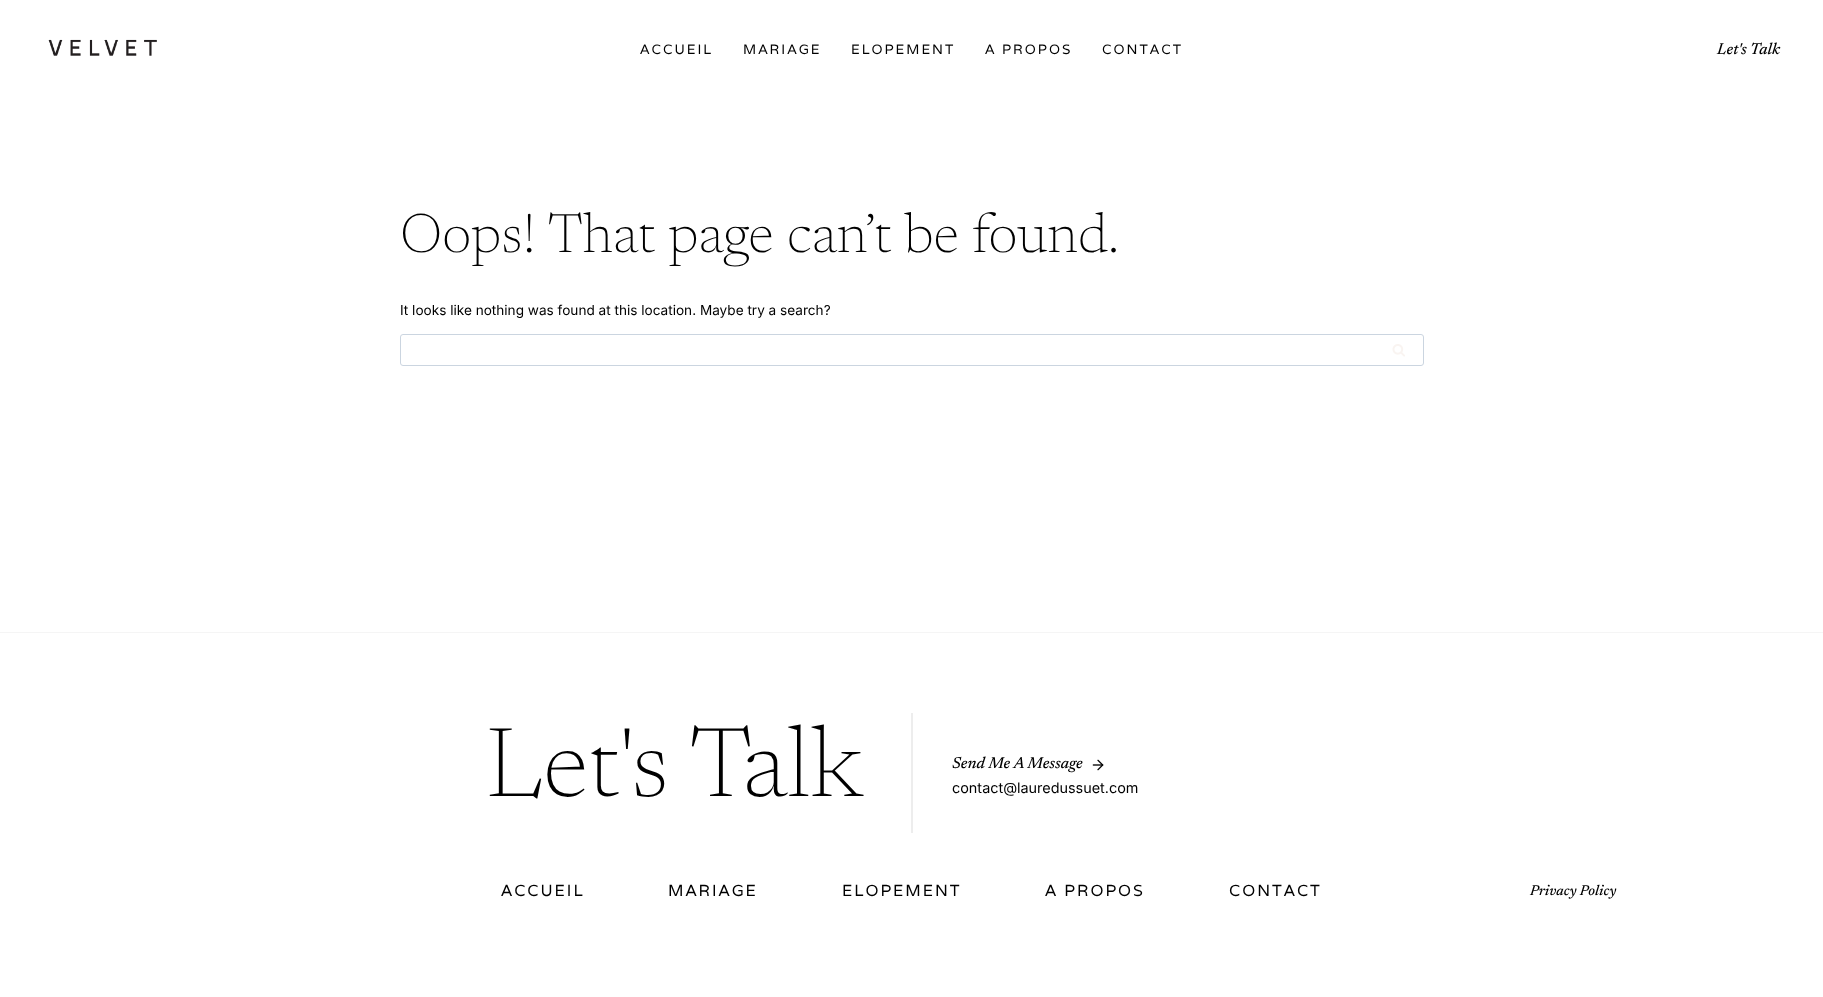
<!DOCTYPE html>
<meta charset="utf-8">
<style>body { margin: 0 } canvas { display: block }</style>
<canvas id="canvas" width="1823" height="997"></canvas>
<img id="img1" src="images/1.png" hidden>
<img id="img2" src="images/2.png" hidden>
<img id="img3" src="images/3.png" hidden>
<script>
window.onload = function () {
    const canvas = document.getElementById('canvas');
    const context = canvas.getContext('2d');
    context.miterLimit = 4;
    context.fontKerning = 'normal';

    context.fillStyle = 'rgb(255, 255, 255)';
    context.fillRect(0, 0, 1823, 997);
    context.drawImage(document.getElementById('img1'), 48, 39, 109, 17);
    context.beginPath();
    context.roundRect(400.5, 334.5, 1023, 31, 2.5);
    context.strokeStyle = 'rgb(203, 213, 224)';
    context.stroke();
    context.drawImage(document.getElementById('img2'), 1392, 344, 13, 13);
    context.fillStyle = 'rgb(245, 245, 245)';
    context.fillRect(0, 632, 1823, 1);
    context.fillStyle = 'rgb(237, 237, 237)';
    context.fillRect(911, 713, 2, 120);
    context.drawImage(document.getElementById('img3'), 1092, 759, 12, 12);
    context.letterSpacing = '2px';
    context.font = '13.6px Varela';
    context.fillStyle = 'rgb(0, 0, 0)';
    context.fillText('ACCUEIL', 640, 54);
    context.fillText('MARIAGE', 743, 54);
    context.fillText('ELOPEMENT', 851, 54);
    context.fillText('A PROPOS', 985, 54);
    context.fillText('CONTACT', 1102, 54);
    context.letterSpacing = '0px';
    context.font = 'italic 500 16px Newsreader';
    context.fillText('Let\'s Talk', 1717, 54);
    context.font = '200 56px Newsreader';
    context.fillText('Oops! That page can’t be found.', 400, 252);
    context.font = '13.6px Inter';
    context.fillText('It looks like nothing was found at this location. Maybe try a search?', 400, 315);
    context.font = '200 100px Newsreader';
    context.fillText('Let\'s Talk', 486, 796);
    context.font = 'italic 500 16px Newsreader';
    context.fillText('Send Me A Message', 952, 768);
    context.font = '14.4px Inter';
    context.fillText('contact@lauredussuet.com', 952, 793);
    context.letterSpacing = '2px';
    context.font = '16px Varela';
    context.fillText('ACCUEIL', 501, 896);
    context.fillText('MARIAGE', 668, 896);
    context.fillText('ELOPEMENT', 842, 896);
    context.fillText('A PROPOS', 1045, 896);
    context.fillText('CONTACT', 1229, 896);
    context.letterSpacing = '0px';
    context.font = 'italic 500 14.4px Newsreader';
    context.fillText('Privacy Policy', 1530, 895);
};
</script>
